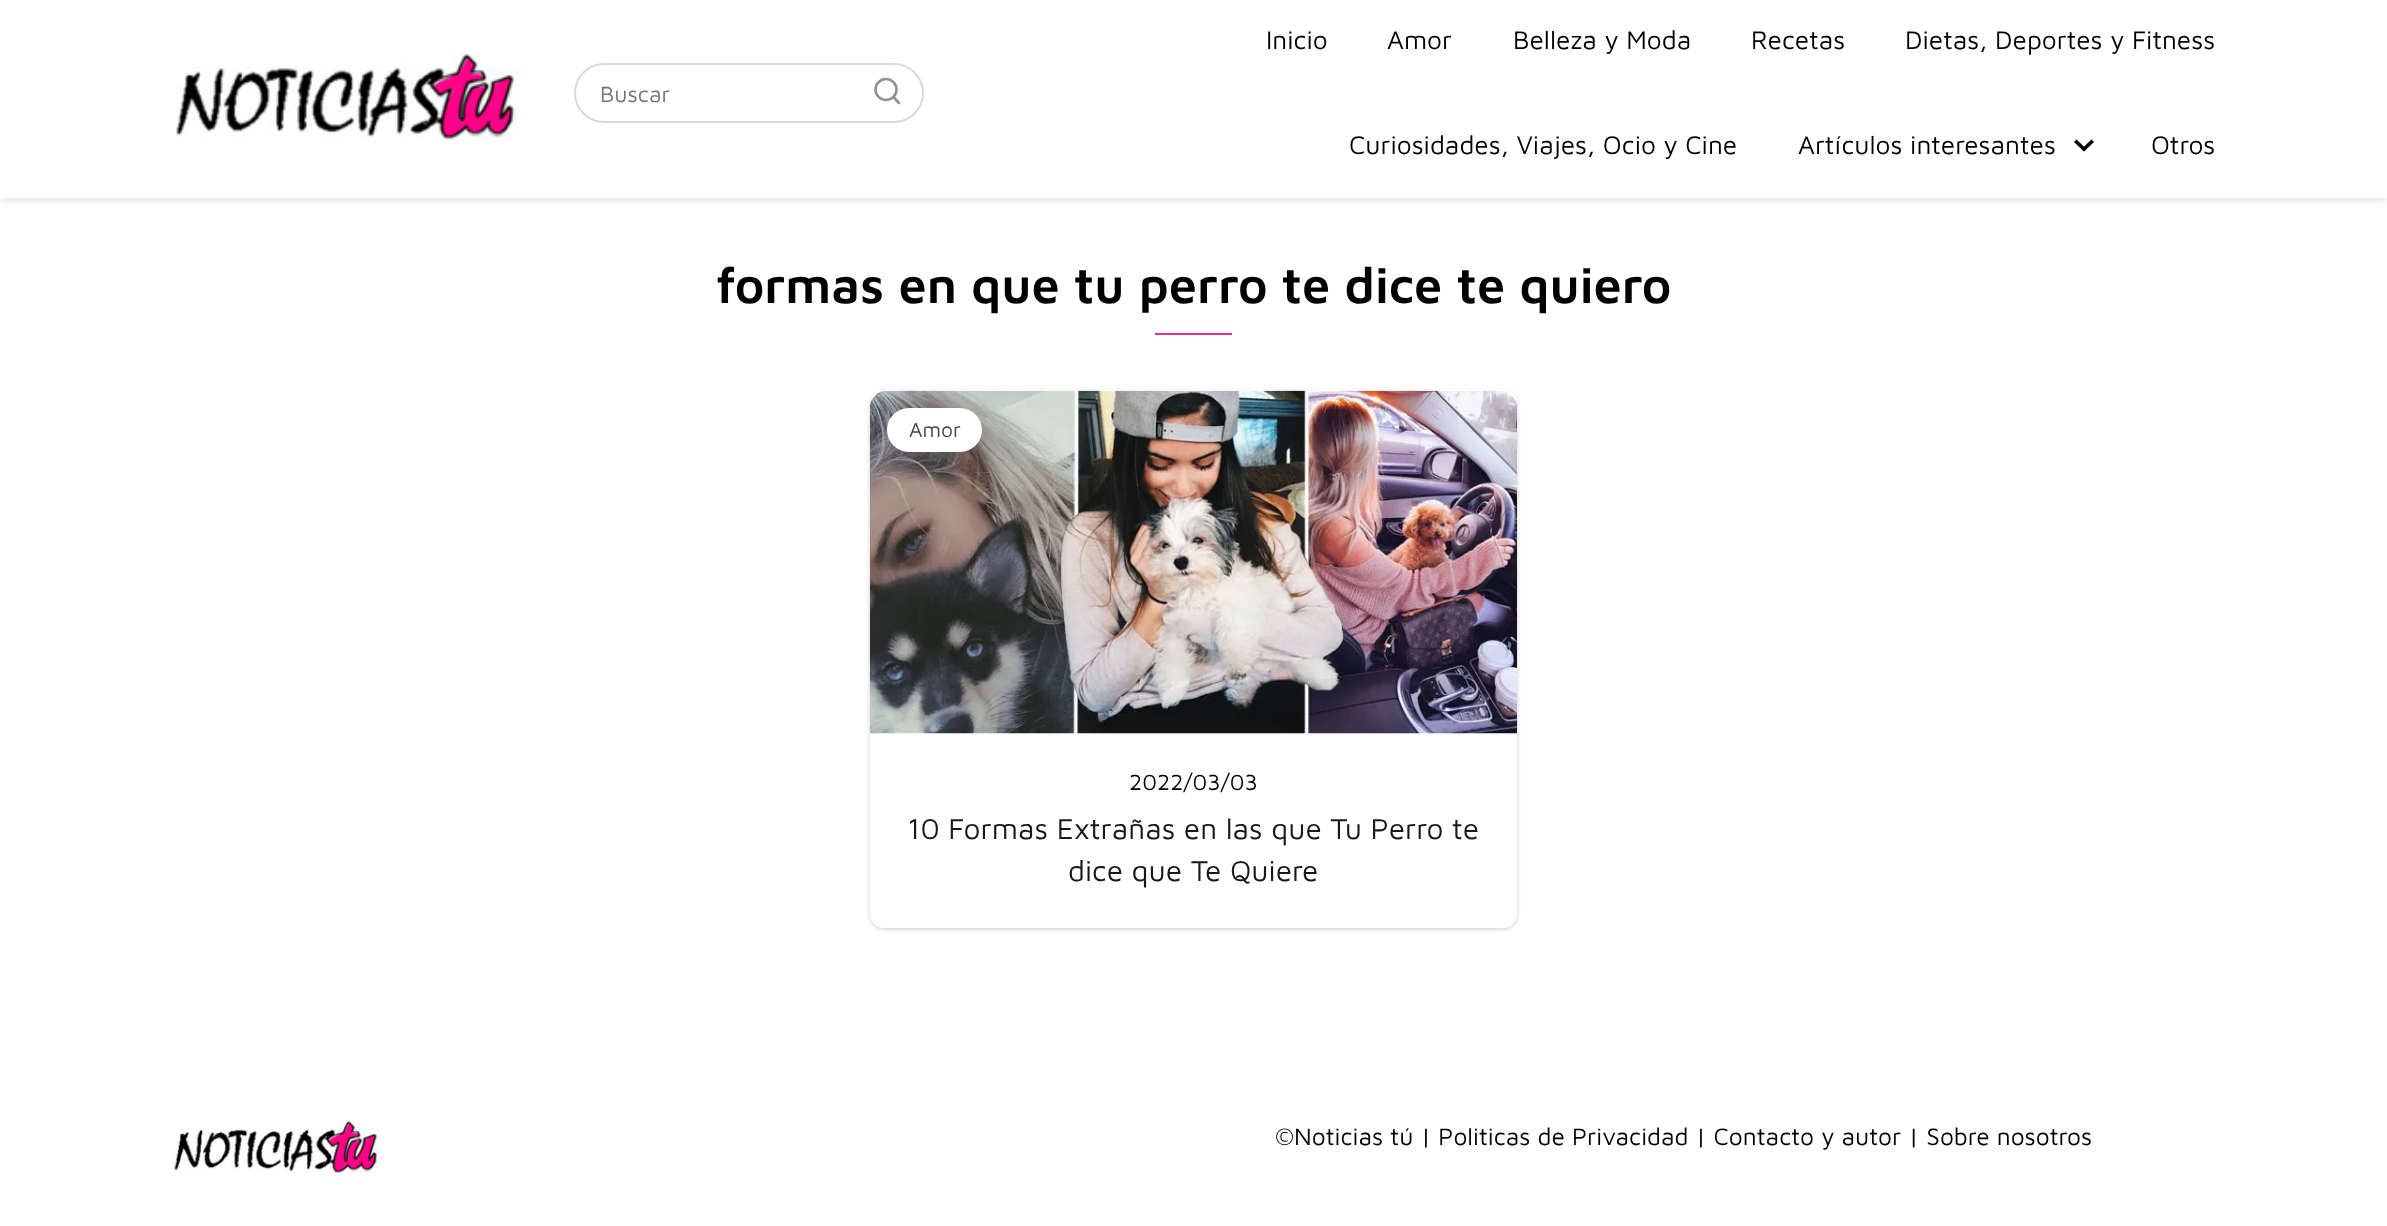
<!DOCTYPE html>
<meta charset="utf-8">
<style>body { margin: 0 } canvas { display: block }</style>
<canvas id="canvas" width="2387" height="1226"></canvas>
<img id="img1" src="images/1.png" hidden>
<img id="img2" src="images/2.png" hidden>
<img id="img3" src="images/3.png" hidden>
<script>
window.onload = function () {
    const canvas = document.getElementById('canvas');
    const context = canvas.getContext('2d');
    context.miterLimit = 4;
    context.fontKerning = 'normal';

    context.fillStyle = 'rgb(255, 255, 255)';
    context.fillRect(0, 0, 2387, 1226);
    context.fillStyle = 'rgba(0, 0, 0, 0.1)';
    context.filter = 'blur(3.5px)';
    context.beginPath();
    context.rect(0, -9, 2387, 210);
    context.fill();
    context.filter = 'none';
    context.fillStyle = 'rgb(255, 255, 255)';
    context.fillRect(0, 0, 2387, 198);
    context.drawImage(document.getElementById('img1'), 176, 52, 346, 90);
    context.beginPath();
    context.roundRect(575, 64, 348, 58, 29);
    context.strokeStyle = 'rgb(217, 217, 217)';
    context.lineWidth = 2;
    context.stroke();
    context.beginPath();
    context.arc(886, 89.5, 10.5, 0, 2 * Math.PI);
    context.strokeStyle = 'rgb(145, 145, 145)';
    context.lineWidth = 2.6;
    context.stroke();
    context.beginPath();
    context.moveTo(899, 103);
    context.lineTo(893.5, 97);
    context.lineCap = 'round';
    context.lineJoin = 'round';
    context.stroke();
    context.fillStyle = 'rgb(0, 0, 0)';
    context.beginPath();
    context.moveTo(2091.5, 139.5);
    context.lineTo(2094, 142);
    context.lineTo(2084, 151.5);
    context.lineTo(2081.5, 149);
    context.closePath();
    context.fill();
    context.beginPath();
    context.moveTo(2076.5, 139.5);
    context.lineTo(2086.5, 149);
    context.lineTo(2084, 151.5);
    context.lineTo(2074, 142);
    context.closePath();
    context.fill();
    context.fillStyle = 'rgb(234, 49, 141)';
    context.fillRect(1155, 333, 77, 2);
    context.fillStyle = 'rgba(0, 0, 0, 0.2)';
    context.filter = 'blur(2px)';
    context.beginPath();
    context.roundRect(870, 392, 647, 537, 14);
    context.fill();
    context.filter = 'none';
    context.fillStyle = 'rgb(255, 255, 255)';
    context.beginPath();
    context.roundRect(870, 390, 647, 538, 14);
    context.fill();
    context.drawImage(document.getElementById('img2'), 870, 390, 647, 344);
    context.fillStyle = 'rgba(119, 119, 119, 0.48)';
    context.filter = 'blur(9px)';
    context.beginPath();
    context.roundRect(887, 408, 95, 44, 22);
    context.fill();
    context.filter = 'none';
    context.fillStyle = 'rgb(255, 255, 255)';
    context.beginPath();
    context.roundRect(887, 408, 95, 44, 22);
    context.fill();
    context.drawImage(document.getElementById('img3'), 174, 1120, 208, 54);
    context.font = '22.75px Maven Pro';
    context.fillStyle = 'rgb(117, 117, 117)';
    context.fillText('Buscar', 600, 102);
    context.font = '26.25px Maven Pro';
    context.fillStyle = 'rgb(0, 0, 0)';
    context.fillText('Inicio', 1266, 49);
    context.fillText('Amor', 1387, 49);
    context.fillText('Belleza y Moda', 1513, 49);
    context.fillText('Recetas', 1751, 49);
    context.fillText('Dietas, Deportes y Fitness', 1905, 49);
    context.fillText('Curiosidades, Viajes, Ocio y Cine', 1349, 154);
    context.fillText('Artículos interesantes', 1798, 154);
    context.fillText('Otros', 2151, 154);
    context.font = '600 50.75px Maven Pro';
    context.fillText('formas en que tu perro te dice te quiero', 716, 303);
    context.font = '21px Maven Pro';
    context.fillStyle = 'rgb(68, 68, 68)';
    context.fillText('Amor', 909, 437);
    context.font = '22.75px Maven Pro';
    context.fillStyle = 'rgb(0, 0, 0)';
    context.fillText('2022/03/03', 1129, 790);
    context.font = '29.75px Maven Pro';
    context.fillStyle = 'rgb(24, 24, 24)';
    context.fillText('10 Formas Extrañas en las que Tu Perro te', 907, 839);
    context.fillText('dice que Te Quiere', 1068, 881);
    context.font = '24.5px Maven Pro';
    context.fillStyle = 'rgb(0, 0, 0)';
    context.fillText('©Noticias tú | Politicas de Privacidad | Contacto y autor | Sobre nosotros', 1275, 1145);
};
</script>
